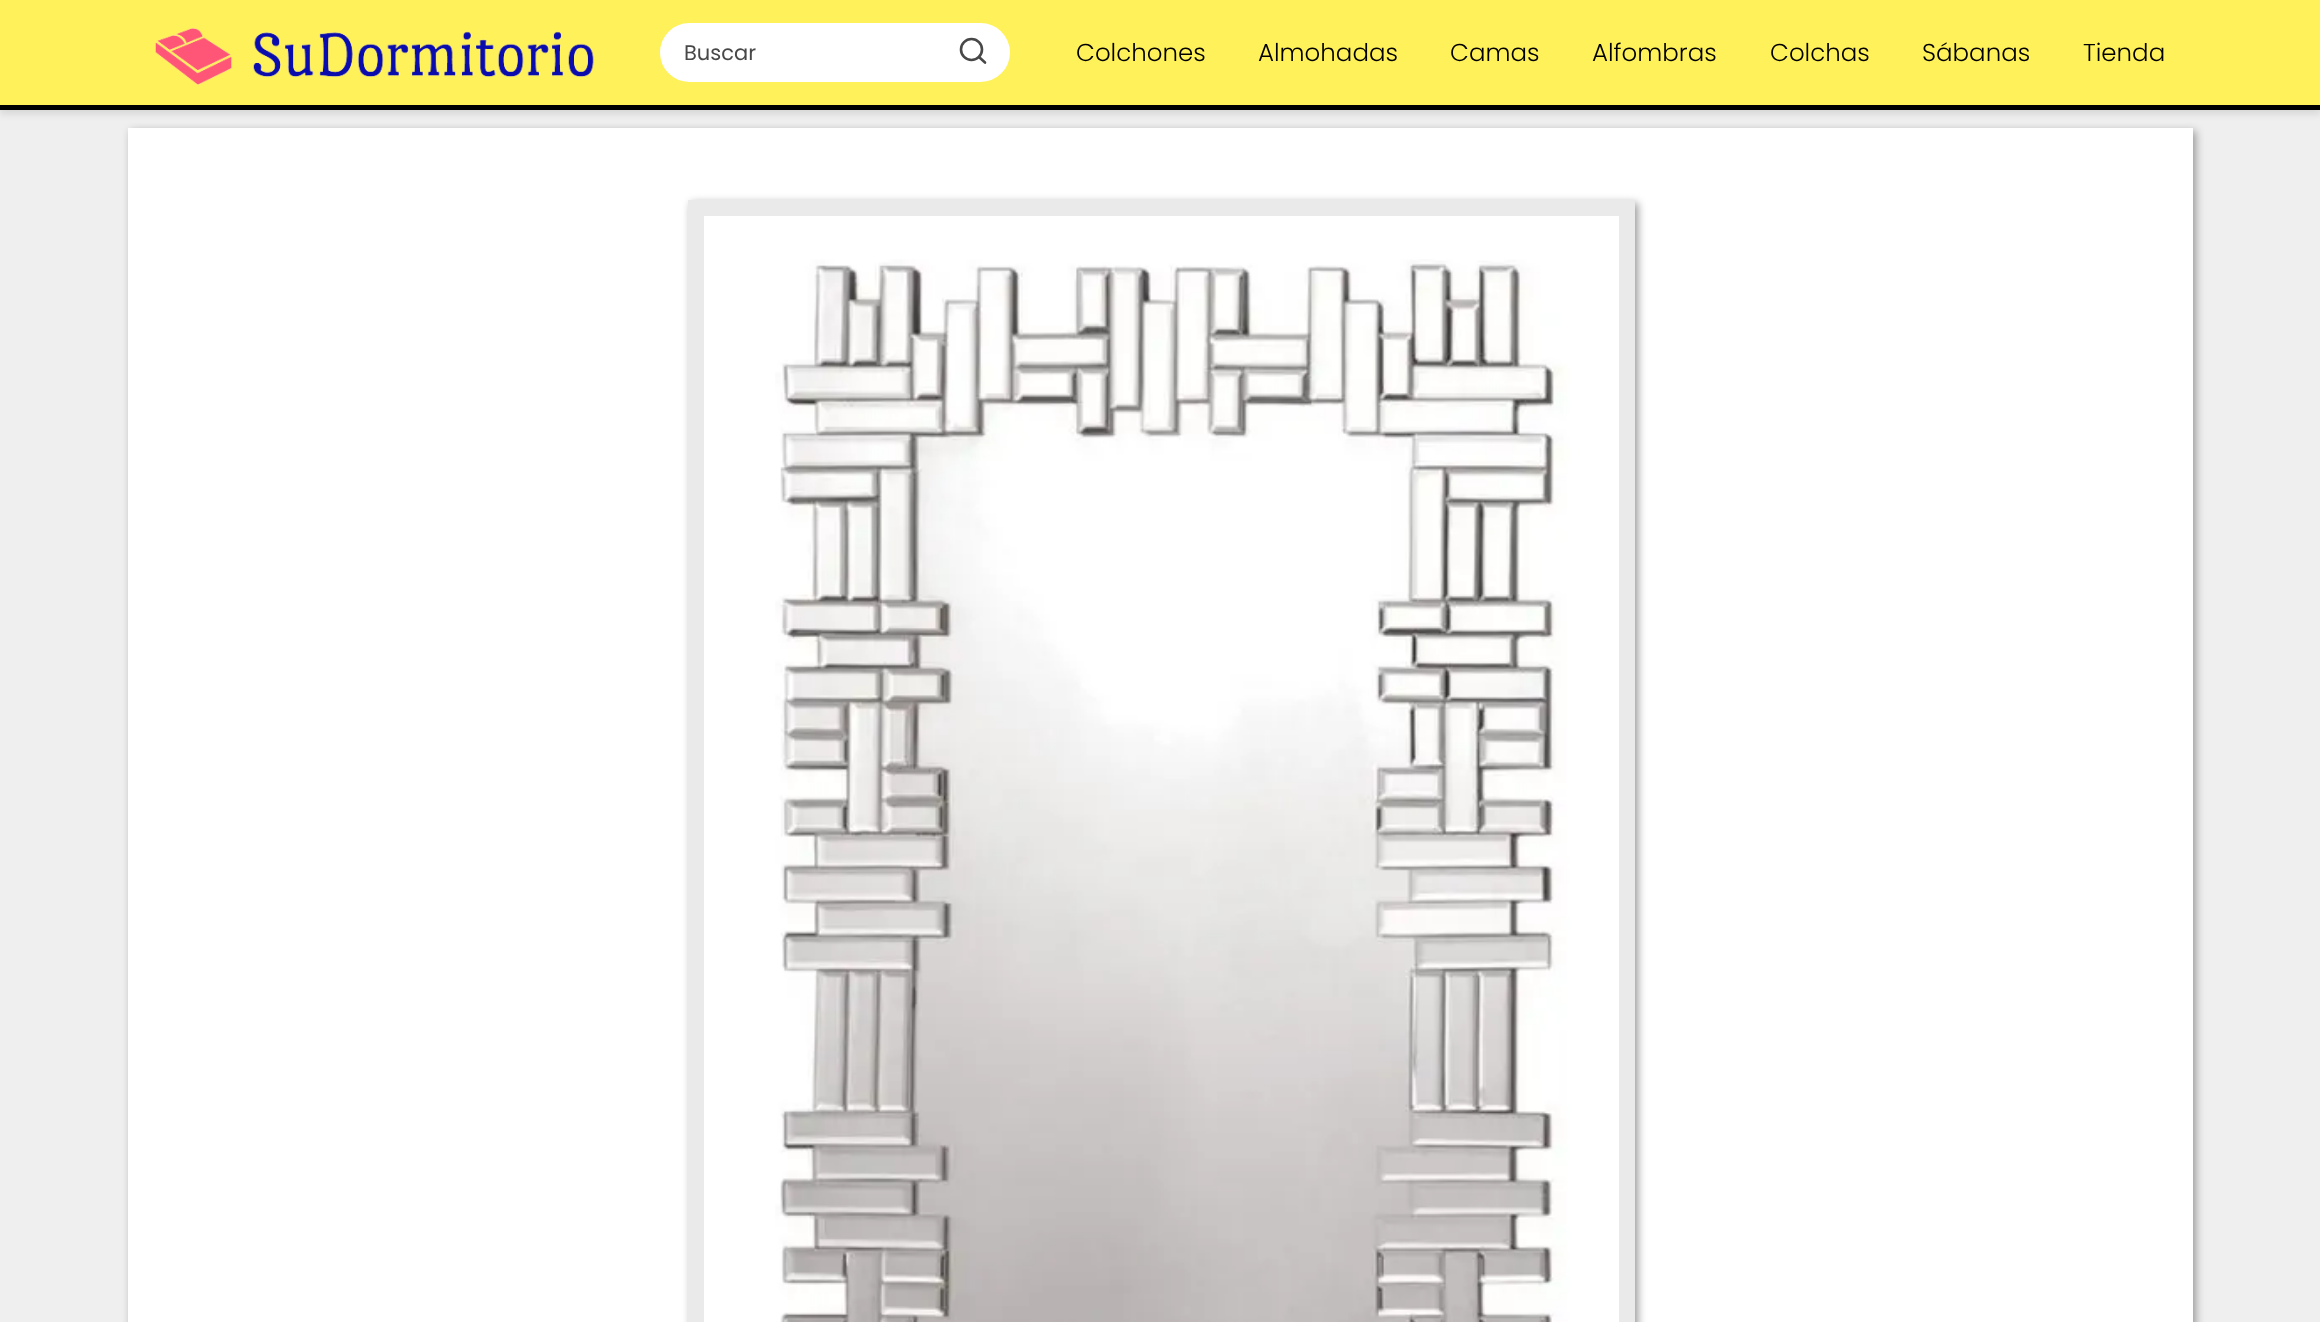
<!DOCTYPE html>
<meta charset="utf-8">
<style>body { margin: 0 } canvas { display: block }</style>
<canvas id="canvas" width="2320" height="1322"></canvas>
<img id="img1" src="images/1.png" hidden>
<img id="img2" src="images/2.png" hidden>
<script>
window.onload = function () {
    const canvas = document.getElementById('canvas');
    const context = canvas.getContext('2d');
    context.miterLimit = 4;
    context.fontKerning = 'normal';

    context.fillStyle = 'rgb(239, 239, 239)';
    context.fillRect(0, 0, 2320, 1322);
    context.fillStyle = 'rgba(0, 0, 0, 0.1)';
    context.filter = 'blur(3.5px)';
    context.beginPath();
    context.rect(0, 4, 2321, 110);
    context.fill();
    context.filter = 'none';
    context.fillStyle = 'rgb(255, 241, 90)';
    context.fillRect(0, 0, 2320, 105);
    context.fillStyle = 'rgb(0, 0, 0)';
    context.fillRect(0, 105, 2320, 5);
    context.drawImage(document.getElementById('img1'), 155, 28, 439, 57);
    context.fillStyle = 'rgb(255, 255, 255)';
    context.beginPath();
    context.roundRect(661, 24, 348, 57, 28.5);
    context.fill();
    context.strokeStyle = 'rgb(255, 255, 255)';
    context.lineWidth = 2;
    context.stroke();
    context.beginPath();
    context.arc(971.5, 49.5, 10.5, 0, 2 * Math.PI);
    context.strokeStyle = 'rgb(72, 72, 72)';
    context.lineWidth = 2.6;
    context.stroke();
    context.beginPath();
    context.moveTo(985, 62.5);
    context.lineTo(979, 57);
    context.lineCap = 'round';
    context.lineJoin = 'round';
    context.stroke();
    context.fillStyle = 'rgb(153, 153, 153)';
    context.filter = 'blur(4.5px)';
    context.beginPath();
    context.rect(131, 131, 2065, 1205);
    context.fill();
    context.filter = 'none';
    context.fillStyle = 'rgb(255, 255, 255)';
    context.fillRect(128, 128, 2065, 1194);
    context.save();
    context.beginPath();
    context.moveTo(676, 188);
    context.lineTo(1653, 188);
    context.lineTo(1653, 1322);
    context.lineTo(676, 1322);
    context.closePath();
    context.moveTo(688, 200);
    context.lineTo(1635, 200);
    context.lineTo(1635, 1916);
    context.lineTo(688, 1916);
    context.closePath();
    context.clip('evenodd');
    context.fillStyle = 'rgb(153, 153, 153)';
    context.filter = 'blur(4.5px)';
    context.beginPath();
    context.rect(691, 203, 947, 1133);
    context.fill();
    context.filter = 'none';
    context.restore();
    context.strokeStyle = 'rgb(234, 234, 234)';
    context.lineWidth = 16;
    context.lineJoin = 'miter';
    context.strokeRect(696, 208, 931, 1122);
    context.drawImage(document.getElementById('img2'), 775, 259, 795, 1063);
    context.font = '21px Poppins';
    context.fillStyle = 'rgb(72, 72, 72)';
    context.fillText('Buscar', 684, 60);
    context.font = '300 24.5px Poppins';
    context.fillStyle = 'rgb(0, 0, 0)';
    context.fillText('Colchones', 1076, 61);
    context.fillText('Almohadas', 1258, 61);
    context.fillText('Camas', 1450, 61);
    context.fillText('Alfombras', 1592, 61);
    context.fillText('Colchas', 1770, 61);
    context.fillText('Sábanas', 1922, 61);
    context.fillText('Tienda', 2083, 61);
};
</script>
